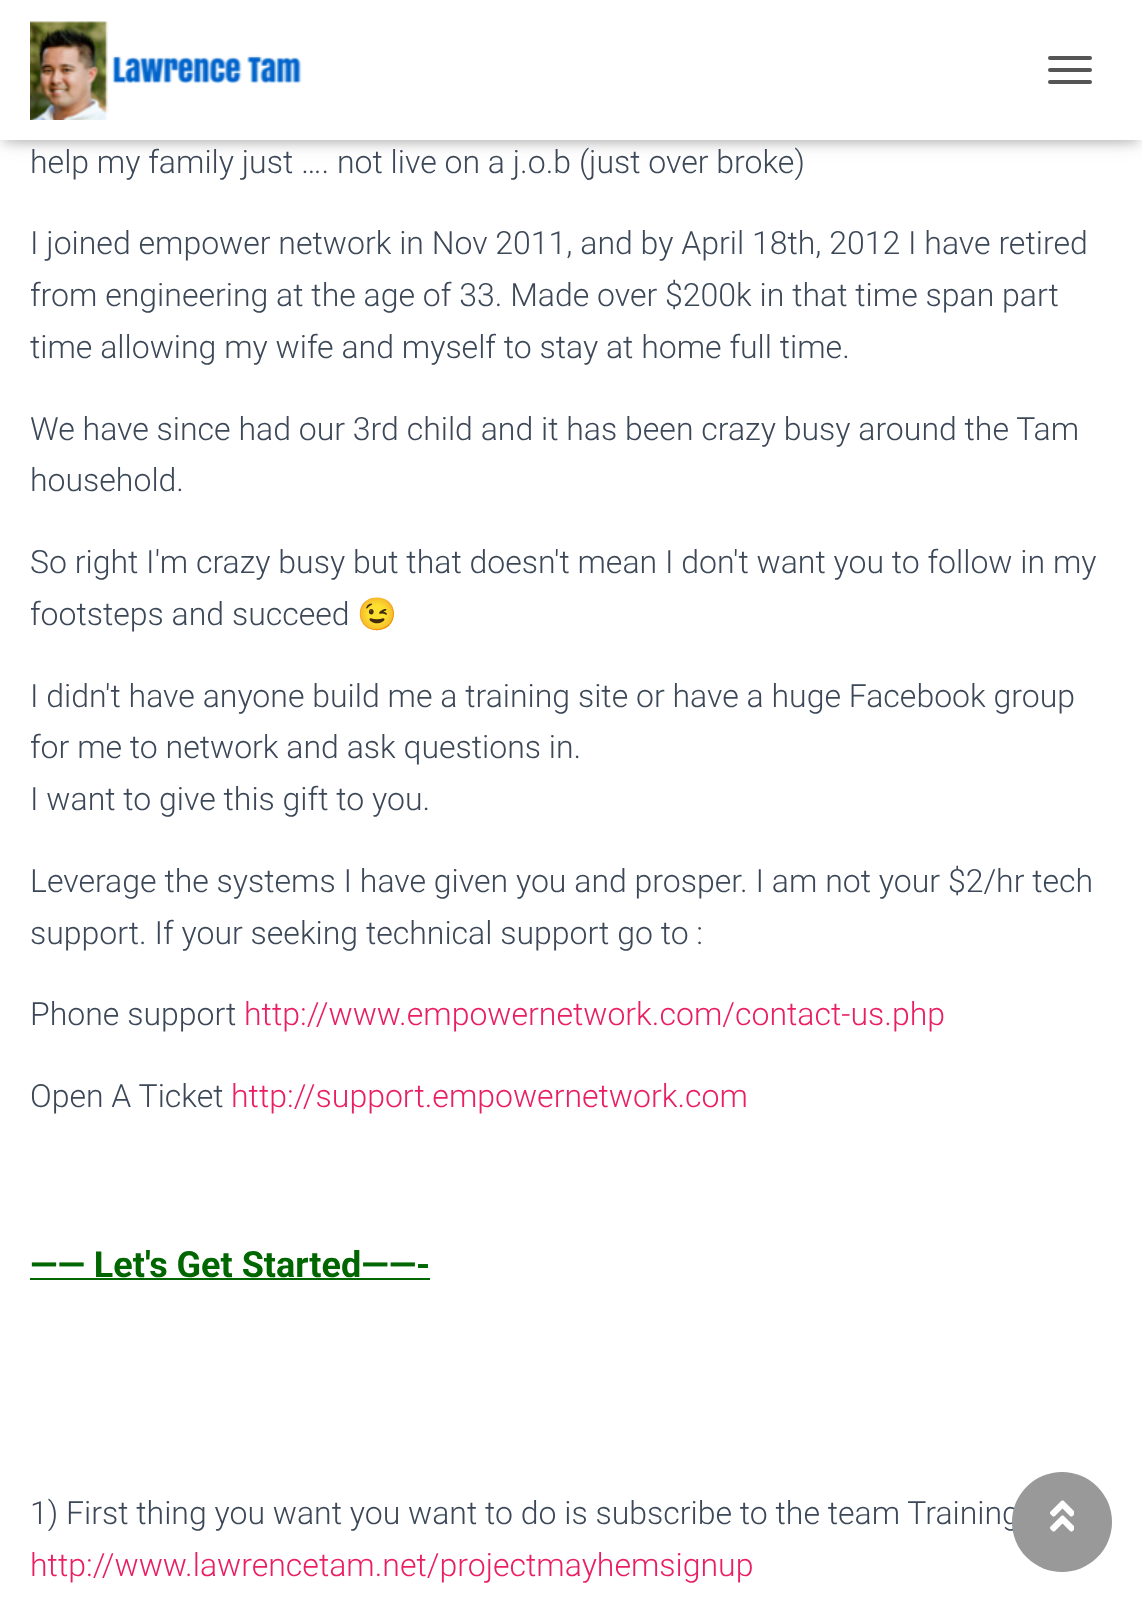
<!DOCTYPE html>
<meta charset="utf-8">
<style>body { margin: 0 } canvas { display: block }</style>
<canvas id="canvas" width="1142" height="1602"></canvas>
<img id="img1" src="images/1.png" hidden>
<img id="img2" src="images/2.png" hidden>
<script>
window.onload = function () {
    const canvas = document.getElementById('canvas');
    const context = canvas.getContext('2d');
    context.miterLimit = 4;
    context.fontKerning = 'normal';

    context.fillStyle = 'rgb(255, 255, 255)';
    context.fillRect(0, 0, 1142, 1602);
    context.fillStyle = 'rgba(0, 0, 0, 0.1)';
    context.filter = 'blur(5px)';
    context.beginPath();
    context.rect(4, 12, 1134, 132);
    context.fill();
    context.filter = 'none';
    context.fillStyle = 'rgba(0, 0, 0, 0.12)';
    context.filter = 'blur(10px)';
    context.beginPath();
    context.rect(0, 2, 1142, 140);
    context.fill();
    context.filter = 'none';
    context.fillStyle = 'rgba(0, 0, 0, 0.42)';
    context.filter = 'blur(10px)';
    context.beginPath();
    context.rect(12, 14, 1118, 116);
    context.fill();
    context.filter = 'none';
    context.fillStyle = 'rgb(255, 255, 255)';
    context.fillRect(0, 0, 1142, 140);
    context.drawImage(document.getElementById('img1'), 30, 21, 272, 99);
    context.fillStyle = 'rgb(85, 85, 85)';
    context.beginPath();
    context.roundRect(1048, 56, 44, 4, 2);
    context.fill();
    context.beginPath();
    context.roundRect(1048, 68, 44, 4, 2);
    context.fill();
    context.beginPath();
    context.roundRect(1048, 80, 44, 4, 2);
    context.fill();
    context.fillStyle = 'rgb(0, 102, 0)';
    context.fillRect(30, 1278, 400, 2);
    context.font = '300 32px Roboto';
    context.fillStyle = 'rgb(60, 72, 88)';
    context.fillText('help my family just …. not live on a j.o.b (just over broke)', 30, 173);
    context.fillText('I joined empower network in Nov 2011, and by April 18th, 2012 I have retired', 30, 254);
    context.fillText('from engineering at the age of 33. Made over $200k in that time span part', 30, 306);
    context.fillText('time allowing my wife and myself to stay at home full time.', 30, 358);
    context.fillText('We have since had our 3rd child and it has been crazy busy around the Tam', 30, 440);
    context.fillText('household.', 30, 491);
    context.fillText('So right I\'m crazy busy but that doesn\'t mean I don\'t want you to follow in my', 30, 573);
    context.fillText('footsteps and succeed', 30, 625);
    context.font = '32px Noto Color Emoji';
    context.fillText('😉', 357, 625);
    context.font = '300 32px Roboto';
    context.fillText('I didn\'t have anyone build me a training site or have a huge Facebook group', 30, 707);
    context.fillText('for me to network and ask questions in.', 30, 758);
    context.fillText('I want to give this gift to you.', 30, 810);
    context.fillText('Leverage the systems I have given you and prosper. I am not your $2/hr tech', 30, 892);
    context.fillText('support. If your seeking technical support go to :', 30, 944);
    context.fillText('Phone support', 30, 1025);
    context.fillStyle = 'rgb(233, 30, 99)';
    context.fillText('http://www.empowernetwork.com/contact-us.php', 244, 1025);
    context.fillStyle = 'rgb(60, 72, 88)';
    context.fillText('Open A Ticket', 30, 1107);
    context.fillStyle = 'rgb(233, 30, 99)';
    context.fillText('http://support.empowernetwork.com', 231, 1107);
    context.font = 'bold 36px Roboto';
    context.fillStyle = 'rgb(0, 102, 0)';
    context.fillText('—— Let\'s Get Started——-', 30, 1277);
    context.font = '300 32px Roboto';
    context.fillStyle = 'rgb(60, 72, 88)';
    context.fillText('1) First thing you want you want to do is subscribe to the team Training', 30, 1524);
    context.fillStyle = 'rgb(233, 30, 99)';
    context.fillText('http://www.lawrencetam.net/projectmayhemsignup', 30, 1576);
    context.fillStyle = 'rgb(153, 153, 153)';
    context.beginPath();
    context.arc(1062, 1522, 50, 0, 2 * Math.PI);
    context.fill();
    context.drawImage(document.getElementById('img2'), 1050, 1500, 24, 32);
};
</script>
